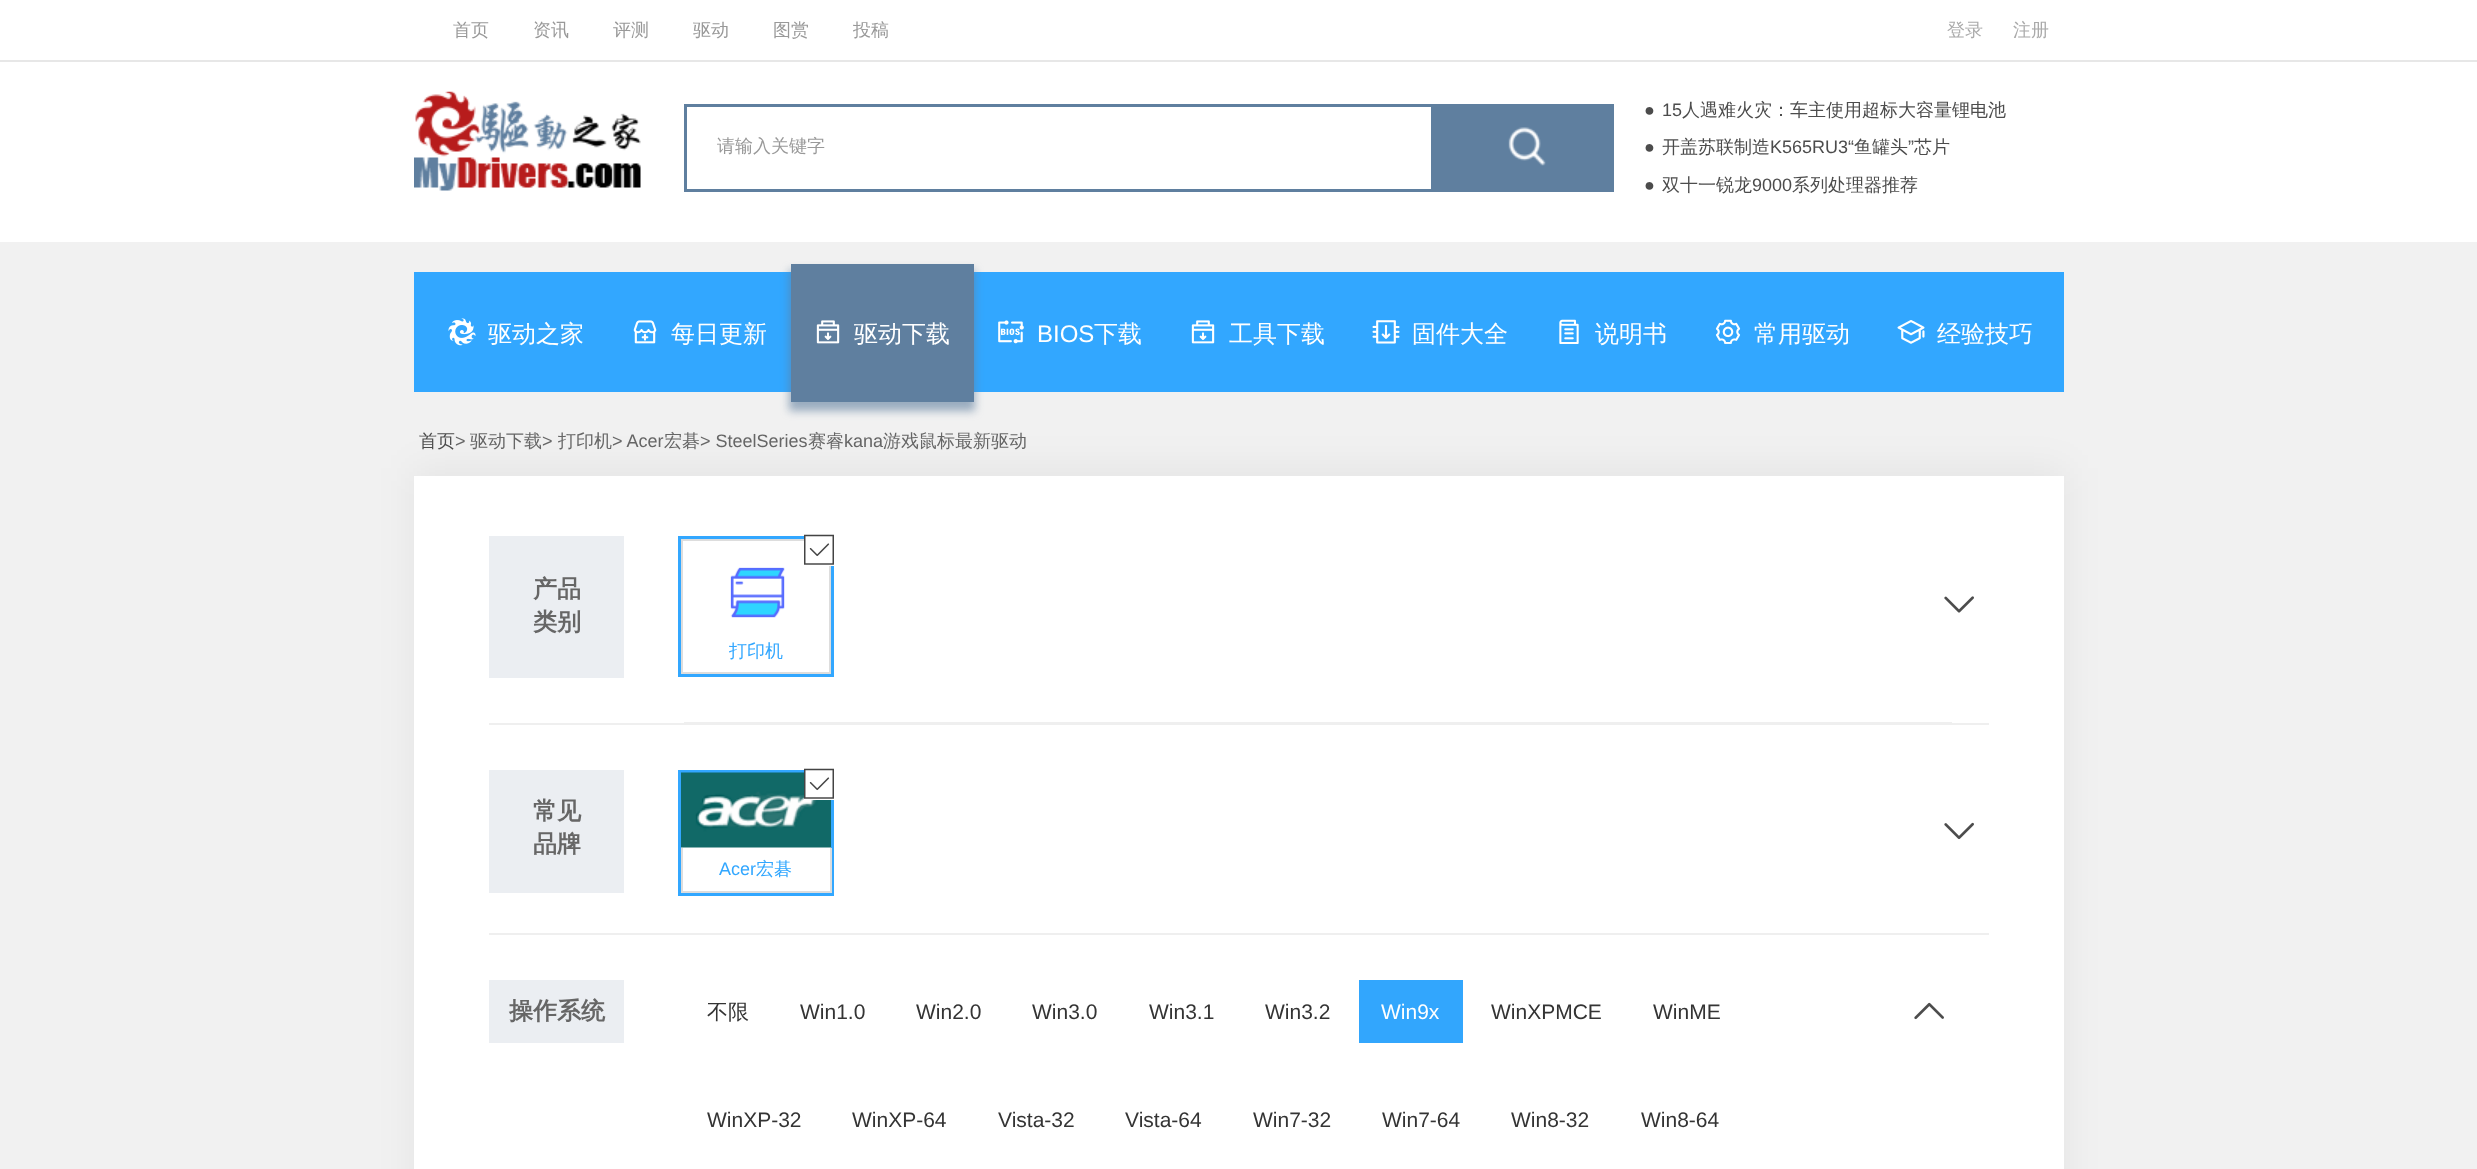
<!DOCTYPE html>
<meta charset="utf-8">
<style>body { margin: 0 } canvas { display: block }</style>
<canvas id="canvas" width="2477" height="1169"></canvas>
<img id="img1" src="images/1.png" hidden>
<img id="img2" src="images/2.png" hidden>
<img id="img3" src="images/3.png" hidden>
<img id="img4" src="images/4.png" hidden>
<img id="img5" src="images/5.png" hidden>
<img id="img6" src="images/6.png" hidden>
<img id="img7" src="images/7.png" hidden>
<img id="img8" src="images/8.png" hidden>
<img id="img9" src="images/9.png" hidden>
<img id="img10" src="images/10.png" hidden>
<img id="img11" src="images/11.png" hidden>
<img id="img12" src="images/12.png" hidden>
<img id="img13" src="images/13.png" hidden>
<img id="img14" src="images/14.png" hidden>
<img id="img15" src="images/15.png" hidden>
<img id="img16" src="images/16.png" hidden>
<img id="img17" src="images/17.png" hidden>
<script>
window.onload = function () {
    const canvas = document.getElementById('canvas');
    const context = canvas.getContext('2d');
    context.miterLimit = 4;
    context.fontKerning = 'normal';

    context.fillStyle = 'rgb(241, 241, 241)';
    context.fillRect(0, 0, 2477, 1169);
    context.fillStyle = 'rgb(255, 255, 255)';
    context.fillRect(0, 0, 2477, 60);
    context.fillStyle = 'rgb(231, 231, 231)';
    context.fillRect(0, 60, 2477, 2);
    context.fillStyle = 'rgb(255, 255, 255)';
    context.fillRect(0, 62, 2477, 180);
    context.drawImage(document.getElementById('img1'), 414, 91, 227, 100);
    context.strokeStyle = 'rgb(95, 127, 159)';
    context.lineWidth = 3;
    context.strokeRect(685.5, 105.5, 927, 85);
    context.fillStyle = 'rgb(95, 127, 159)';
    context.fillRect(1431, 107, 180, 82);
    context.drawImage(document.getElementById('img2'), 1508, 127, 38, 39);
    context.fillStyle = 'rgb(50, 167, 255)';
    context.fillRect(414, 272, 1650, 120);
    context.drawImage(document.getElementById('img3'), 448, 318, 28, 28);
    context.drawImage(document.getElementById('img4'), 633, 320, 24, 24);
    context.fillStyle = 'rgba(95, 127, 159, 0.6)';
    context.filter = 'blur(4px)';
    context.beginPath();
    context.rect(789, 270, 186, 141);
    context.fill();
    context.filter = 'none';
    context.fillStyle = 'rgb(95, 127, 159)';
    context.fillRect(791, 264, 183, 138);
    context.drawImage(document.getElementById('img5'), 816, 320, 24, 24);
    context.drawImage(document.getElementById('img6'), 998, 320, 26, 24);
    context.drawImage(document.getElementById('img7'), 1191, 320, 24, 24);
    context.drawImage(document.getElementById('img8'), 1372, 320, 28, 24);
    context.drawImage(document.getElementById('img9'), 1559, 319, 20, 25);
    context.drawImage(document.getElementById('img10'), 1715, 319, 26, 25);
    context.drawImage(document.getElementById('img11'), 1897, 320, 28, 24);
    context.fillStyle = 'rgba(0, 0, 0, 0.05)';
    context.filter = 'blur(19px)';
    context.beginPath();
    context.rect(413, 468, 1653, 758);
    context.fill();
    context.filter = 'none';
    context.fillStyle = 'rgb(255, 255, 255)';
    context.fillRect(414, 476, 1650, 693);
    context.fillStyle = 'rgb(239, 239, 239)';
    context.fillRect(489, 723, 1500, 2);
    context.fillStyle = 'rgb(235, 238, 242)';
    context.fillRect(489, 536, 135, 142);
    context.drawImage(document.getElementById('img12'), 1944, 596, 30, 17);
    context.strokeStyle = 'rgb(50, 167, 255)';
    context.strokeRect(679.5, 537.5, 153, 138);
    context.strokeStyle = 'rgb(221, 221, 221)';
    context.lineWidth = 2;
    context.strokeRect(682, 540, 148, 133);
    context.fillStyle = 'rgb(255, 255, 255)';
    context.fillRect(804, 536, 30, 30);
    context.drawImage(document.getElementById('img13'), 804, 534, 30, 31);
    context.drawImage(document.getElementById('img14'), 730, 567, 55, 51);
    context.fillStyle = 'rgb(239, 239, 239)';
    context.fillRect(684, 722, 1268, 1);
    context.fillRect(489, 933, 1500, 2);
    context.fillStyle = 'rgb(235, 238, 242)';
    context.fillRect(489, 770, 135, 123);
    context.drawImage(document.getElementById('img15'), 1944, 822, 30, 18);
    context.strokeStyle = 'rgb(50, 167, 255)';
    context.lineWidth = 3;
    context.strokeRect(679.5, 771.5, 153, 123);
    context.drawImage(document.getElementById('img16'), 681, 772, 150, 76);
    context.fillStyle = 'rgb(255, 255, 255)';
    context.fillRect(804, 770, 30, 30);
    context.drawImage(document.getElementById('img13'), 804, 768, 30, 31);
    context.fillStyle = 'rgb(221, 221, 221)';
    context.fillRect(830, 848, 2, 45);
    context.fillRect(681, 891, 150, 2);
    context.fillRect(681, 848, 2, 45);
    context.fillStyle = 'rgb(235, 238, 242)';
    context.fillRect(489, 980, 135, 63);
    context.fillStyle = 'rgb(50, 166, 253)';
    context.fillRect(1359, 980, 104, 63);
    context.drawImage(document.getElementById('img17'), 1914, 1002, 30, 18);
    context.font = '500 18px WenQuanYi Zen Hei';
    context.fillStyle = 'rgb(153, 153, 153)';
    context.fillText('首页', 453, 36);
    context.fillText('资讯', 533, 36);
    context.fillText('评测', 613, 36);
    context.fillText('驱动', 693, 36);
    context.fillText('图赏', 773, 36);
    context.fillText('投稿', 853, 36);
    context.fillStyle = 'rgb(170, 170, 170)';
    context.fillText('登录', 1947, 36);
    context.fillText('注册', 2013, 36);
    context.fillStyle = 'rgb(153, 153, 153)';
    context.fillText('请输入关键字', 717, 152);
    context.font = '18px Liberation Sans';
    context.fillStyle = 'rgb(76, 76, 76)';
    context.fillText('●', 1644, 116);
    context.fillText('15', 1662, 116);
    context.font = '500 18px WenQuanYi Zen Hei';
    context.fillText('人遇难火灾：车主使用超标大容量锂电池', 1682, 116);
    context.fillText('开盖苏联制造', 1662, 153);
    context.font = '18px Liberation Sans';
    context.fillText('K565RU3“', 1770, 153);
    context.font = '500 18px WenQuanYi Zen Hei';
    context.fillText('鱼罐头', 1854, 153);
    context.font = '18px Liberation Sans';
    context.fillText('”', 1908, 153);
    context.font = '500 18px WenQuanYi Zen Hei';
    context.fillText('芯片', 1914, 153);
    context.font = '18px Liberation Sans';
    context.fillText('●', 1644, 153);
    context.fillText('●', 1644, 191);
    context.font = '500 18px WenQuanYi Zen Hei';
    context.fillText('双十一锐龙', 1662, 191);
    context.font = '18px Liberation Sans';
    context.fillText('9000', 1752, 191);
    context.font = '500 18px WenQuanYi Zen Hei';
    context.fillText('系列处理器推荐', 1792, 191);
    context.font = '500 24px WenQuanYi Zen Hei';
    context.fillStyle = 'rgb(255, 255, 255)';
    context.fillText('驱动之家', 488, 342);
    context.fillText('每日更新', 671, 342);
    context.fillText('驱动下载', 854, 342);
    context.font = '24px Liberation Sans';
    context.fillText('BIOS', 1037, 342);
    context.font = '500 24px WenQuanYi Zen Hei';
    context.fillText('下载', 1094, 342);
    context.fillText('工具下载', 1229, 342);
    context.fillText('固件大全', 1412, 342);
    context.fillText('说明书', 1595, 342);
    context.fillText('常用驱动', 1754, 342);
    context.fillText('经验技巧', 1937, 342);
    context.font = '500 18px WenQuanYi Zen Hei';
    context.fillStyle = 'rgb(76, 76, 76)';
    context.fillText('首页', 419, 447);
    context.font = '18px Liberation Sans';
    context.fillStyle = 'rgb(102, 102, 102)';
    context.fillText('>', 455, 447);
    context.font = '500 18px WenQuanYi Zen Hei';
    context.fillText('驱动下载', 470, 447);
    context.font = '18px Liberation Sans';
    context.fillText('>', 542, 447);
    context.font = '500 18px WenQuanYi Zen Hei';
    context.fillText('打印机', 558, 447);
    context.font = '18px Liberation Sans';
    context.fillText('> Acer', 612, 447);
    context.font = '500 18px WenQuanYi Zen Hei';
    context.fillText('宏碁', 664, 447);
    context.font = '18px Liberation Sans';
    context.fillText('> SteelSeries', 700, 447);
    context.font = '500 18px WenQuanYi Zen Hei';
    context.fillText('赛睿', 808, 447);
    context.font = '18px Liberation Sans';
    context.fillText('kana', 844, 447);
    context.font = '500 18px WenQuanYi Zen Hei';
    context.fillText('游戏鼠标最新驱动', 883, 447);
    context.font = 'bold 24px WenQuanYi Zen Hei';
    context.fillText('产品', 533, 597);
    context.fillText('类别', 533, 630);
    context.font = '500 18px WenQuanYi Zen Hei';
    context.fillStyle = 'rgb(50, 167, 255)';
    context.fillText('打印机', 729, 657);
    context.font = 'bold 24px WenQuanYi Zen Hei';
    context.fillStyle = 'rgb(102, 102, 102)';
    context.fillText('常见', 533, 819);
    context.fillText('品牌', 533, 852);
    context.font = '18px Liberation Sans';
    context.fillStyle = 'rgb(50, 167, 255)';
    context.fillText('Acer', 719, 875);
    context.font = '500 18px WenQuanYi Zen Hei';
    context.fillText('宏碁', 756, 875);
    context.font = 'bold 24px WenQuanYi Zen Hei';
    context.fillStyle = 'rgb(102, 102, 102)';
    context.fillText('操作系统', 509, 1019);
    context.font = '500 21px WenQuanYi Zen Hei';
    context.fillStyle = 'rgb(52, 52, 52)';
    context.fillText('不限', 707, 1019);
    context.font = '21px Liberation Sans';
    context.fillText('Win1.0', 800, 1019);
    context.fillText('Win2.0', 916, 1019);
    context.fillText('Win3.0', 1032, 1019);
    context.fillText('Win3.1', 1149, 1019);
    context.fillText('Win3.2', 1265, 1019);
    context.fillStyle = 'rgb(255, 255, 255)';
    context.fillText('Win9x', 1381, 1019);
    context.fillStyle = 'rgb(52, 52, 52)';
    context.fillText('WinXPMCE', 1491, 1019);
    context.fillText('WinME', 1653, 1019);
    context.fillText('WinXP-32', 707, 1127);
    context.fillText('WinXP-64', 852, 1127);
    context.fillText('Vista-32', 998, 1127);
    context.fillText('Vista-64', 1125, 1127);
    context.fillText('Win7-32', 1253, 1127);
    context.fillText('Win7-64', 1382, 1127);
    context.fillText('Win8-32', 1511, 1127);
    context.fillText('Win8-64', 1641, 1127);
};
</script>
